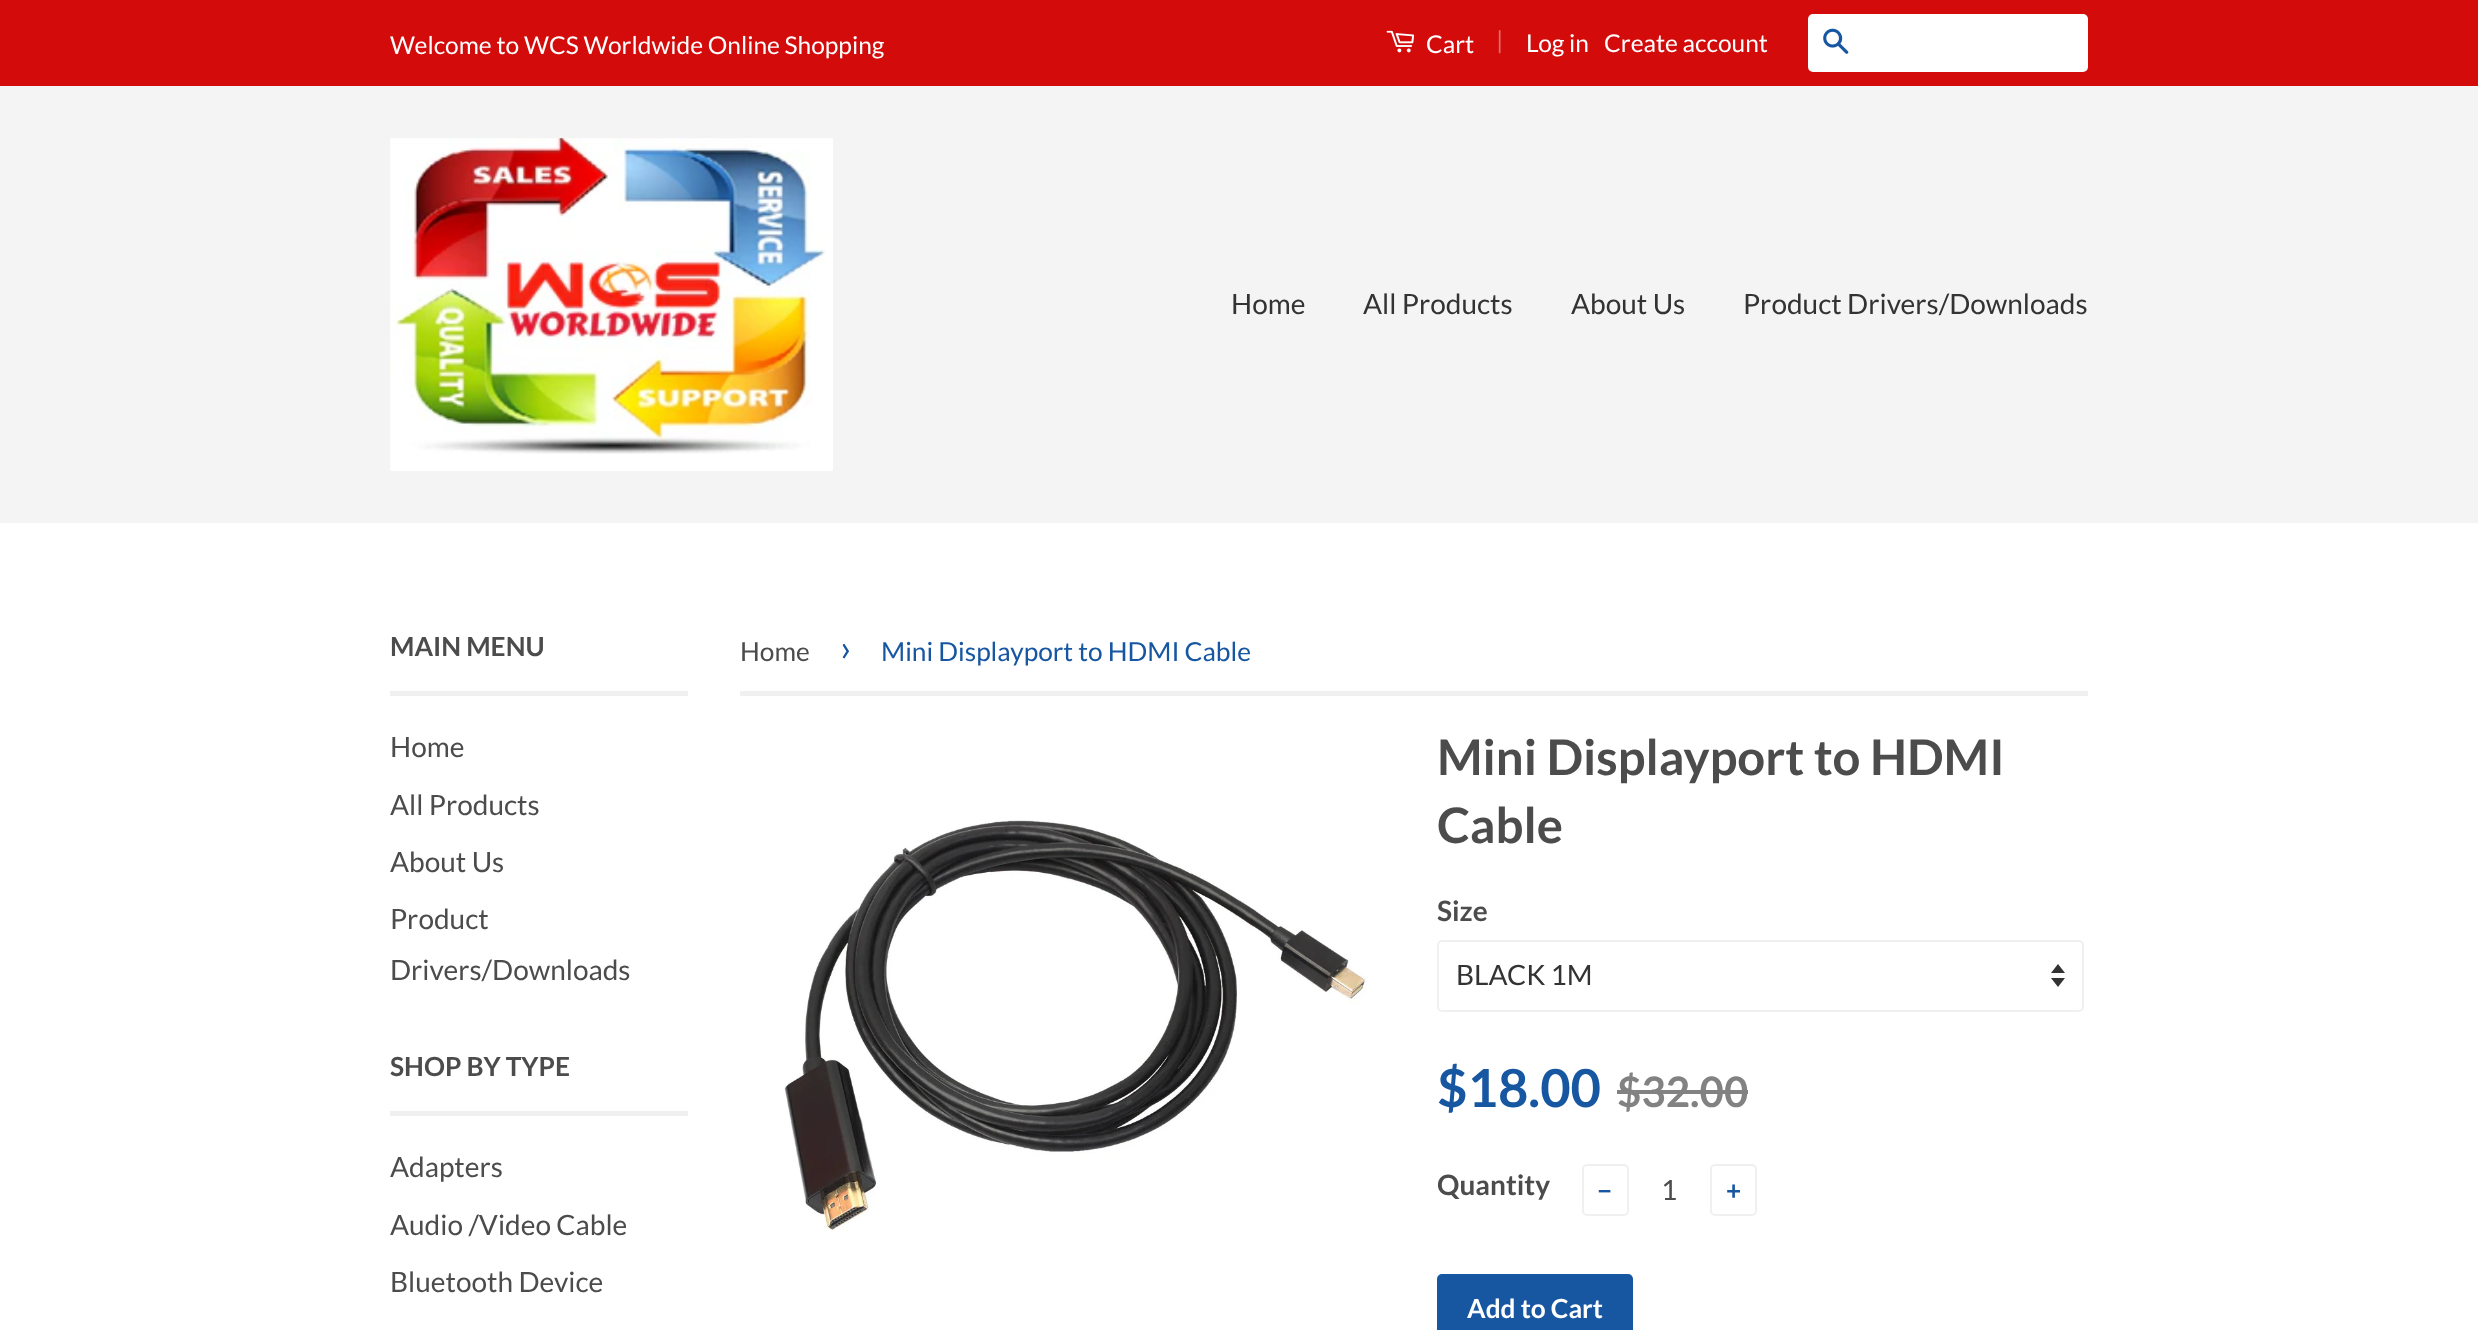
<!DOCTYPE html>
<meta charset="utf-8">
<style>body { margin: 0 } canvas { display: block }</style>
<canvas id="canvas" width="2478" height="1330"></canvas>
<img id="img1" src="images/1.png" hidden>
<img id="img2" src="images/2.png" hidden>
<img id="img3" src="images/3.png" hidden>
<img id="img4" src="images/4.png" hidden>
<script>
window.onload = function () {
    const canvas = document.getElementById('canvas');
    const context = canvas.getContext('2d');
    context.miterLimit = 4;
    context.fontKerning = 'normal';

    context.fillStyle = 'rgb(255, 255, 255)';
    context.fillRect(0, 0, 2478, 1330);
    context.fillStyle = 'rgb(211, 11, 11)';
    context.fillRect(0, 0, 2478, 86);
    context.drawImage(document.getElementById('img1'), 1386, 30, 29, 23);
    context.fillStyle = 'rgb(255, 255, 255)';
    context.beginPath();
    context.roundRect(1808, 14, 280, 58, 5);
    context.fill();
    context.drawImage(document.getElementById('img2'), 1823, 28, 26, 26);
    context.fillStyle = 'rgb(244, 244, 244)';
    context.fillRect(0, 86, 2478, 437);
    context.drawImage(document.getElementById('img3'), 390, 138, 443, 333);
    context.fillStyle = 'rgb(240, 240, 240)';
    context.fillRect(390, 691, 298, 5);
    context.fillRect(390, 1111, 298, 5);
    context.fillRect(740, 691, 1348, 5);
    context.drawImage(document.getElementById('img4'), 784, 820, 583, 410);
    context.fillStyle = 'rgb(51, 51, 51)';
    context.beginPath();
    context.moveTo(2051, 978);
    context.lineTo(2058, 987);
    context.lineTo(2065, 978);
    context.closePath();
    context.moveTo(2058, 964);
    context.lineTo(2051, 973);
    context.lineTo(2065, 973);
    context.closePath();
    context.fill();
    context.beginPath();
    context.roundRect(1438, 941, 645, 70, 4);
    context.strokeStyle = 'rgb(240, 240, 240)';
    context.lineWidth = 2;
    context.stroke();
    context.fillStyle = 'rgb(130, 130, 130)';
    context.fillRect(1617, 1090, 131, 4);
    context.beginPath();
    context.roundRect(1583, 1165, 45, 50, 4);
    context.stroke();
    context.beginPath();
    context.roundRect(1711, 1165, 45, 50, 4);
    context.stroke();
    context.fillStyle = 'rgb(23, 86, 161)';
    context.beginPath();
    context.roundRect(1437, 1274, 196, 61, 5);
    context.fill();
    context.font = '24.5px Lato';
    context.fillStyle = 'rgb(255, 255, 255)';
    context.fillText('Welcome to WCS Worldwide Online Shopping', 390, 54);
    context.fillText('Cart', 1426, 53);
    context.fillStyle = 'rgb(229, 109, 109)';
    context.fillText('|', 1496, 49);
    context.fillStyle = 'rgb(255, 255, 255)';
    context.fillText('Log in', 1526, 52);
    context.fillText('Create account', 1604, 52);
    context.font = '28px Lato';
    context.fillStyle = 'rgb(51, 51, 51)';
    context.fillText('Home', 1231, 314);
    context.fillText('All Products', 1363, 314);
    context.fillText('About Us', 1571, 314);
    context.fillText('Product Drivers/Downloads', 1743, 314);
    context.font = 'bold 26.25px Lato';
    context.fillStyle = 'rgb(76, 76, 76)';
    context.fillText('MAIN MENU', 390, 656);
    context.font = '28px Lato';
    context.fillText('Home', 390, 757);
    context.fillText('All Products', 390, 815);
    context.fillText('About Us', 390, 872);
    context.fillText('Product', 390, 929);
    context.fillText('Drivers/Downloads', 390, 980);
    context.font = 'bold 26.25px Lato';
    context.fillText('SHOP BY TYPE', 390, 1076);
    context.font = '28px Lato';
    context.fillText('Adapters', 390, 1177);
    context.fillText('Audio /Video Cable', 390, 1235);
    context.fillText('Bluetooth Device', 390, 1292);
    context.font = '26.25px Lato';
    context.fillText('Home', 740, 661);
    context.font = '37px Lato';
    context.fillStyle = 'rgb(23, 86, 161)';
    context.fillText('›', 840, 661);
    context.font = '26.25px Lato';
    context.fillText('Mini Displayport to HDMI Cable', 881, 661);
    context.font = 'bold 49px Lato';
    context.fillStyle = 'rgb(76, 76, 76)';
    context.fillText('Mini Displayport to HDMI', 1437, 775);
    context.fillText('Cable', 1437, 843);
    context.font = 'bold 28px Lato';
    context.fillText('Size', 1437, 921);
    context.font = '28px Lato';
    context.fillStyle = 'rgb(51, 51, 51)';
    context.fillText('BLACK 1M', 1456, 985);
    context.font = 'bold 52.5px Lato';
    context.fillStyle = 'rgb(23, 86, 161)';
    context.fillText('$18.00', 1437, 1107);
    context.font = 'bold 42px Lato';
    context.fillStyle = 'rgb(130, 130, 130)';
    context.fillText('$32.00', 1617, 1107);
    context.font = 'bold 28px Lato';
    context.fillStyle = 'rgb(76, 76, 76)';
    context.fillText('Quantity', 1437, 1195);
    context.font = 'bold 26.25px Lato';
    context.fillStyle = 'rgb(23, 86, 161)';
    context.fillText('−', 1597, 1200);
    context.font = '28px Lato';
    context.fillStyle = 'rgb(76, 76, 76)';
    context.fillText('1', 1661, 1200);
    context.font = 'bold 26.25px Lato';
    context.fillStyle = 'rgb(23, 86, 161)';
    context.fillText('+', 1726, 1200);
    context.fillStyle = 'rgb(255, 255, 255)';
    context.fillText('Add to Cart', 1467, 1318);
};
</script>
